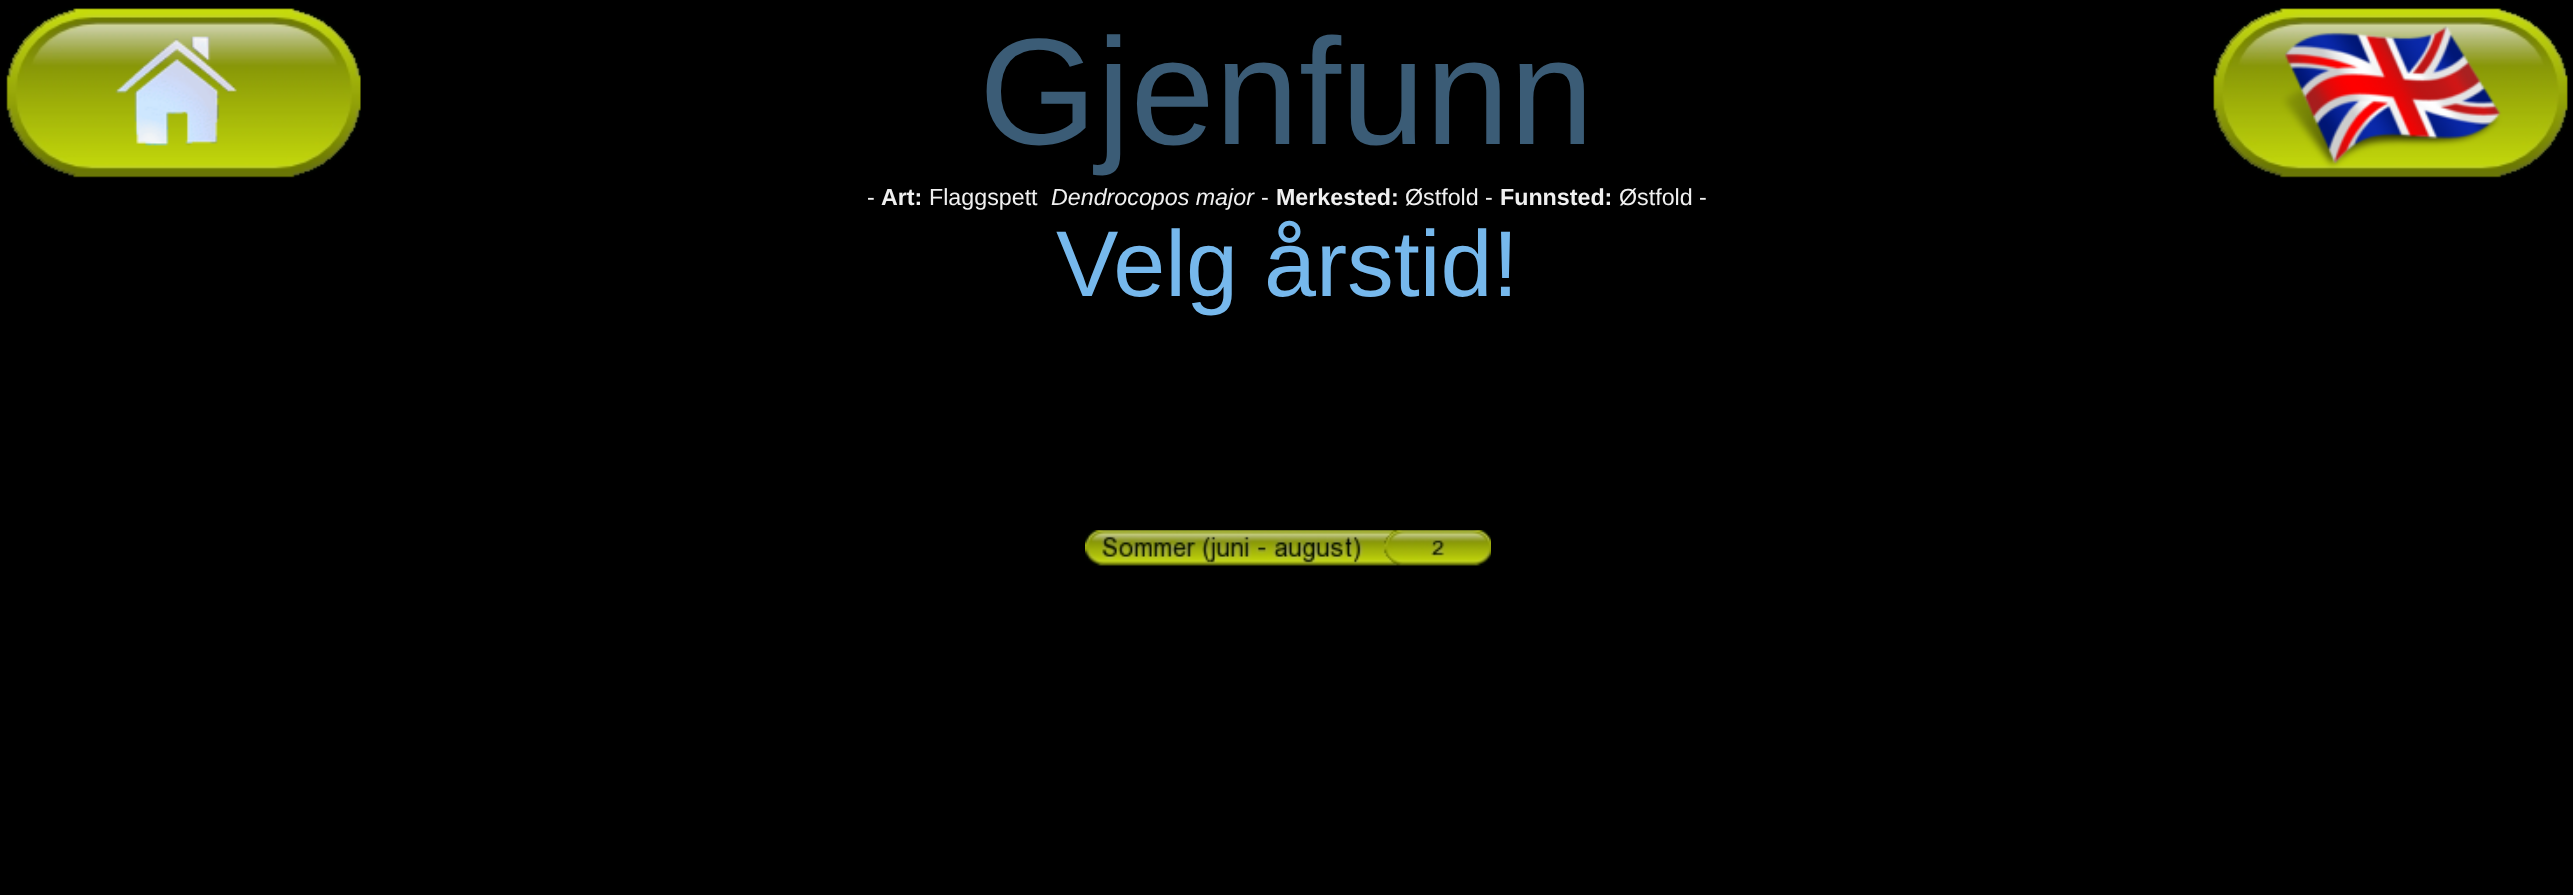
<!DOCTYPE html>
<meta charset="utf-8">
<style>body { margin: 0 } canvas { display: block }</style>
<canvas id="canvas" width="2573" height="895"></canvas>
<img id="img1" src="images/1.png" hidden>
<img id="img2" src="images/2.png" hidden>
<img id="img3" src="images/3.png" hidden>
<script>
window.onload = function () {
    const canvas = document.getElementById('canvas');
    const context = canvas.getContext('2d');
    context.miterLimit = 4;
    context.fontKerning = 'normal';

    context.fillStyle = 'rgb(0, 0, 0)';
    context.fillRect(0, 0, 2573, 895);
    context.drawImage(document.getElementById('img1'), 6, 8, 355, 170);
    context.drawImage(document.getElementById('img2'), 2213, 8, 355, 170);
    context.drawImage(document.getElementById('img3'), 1085, 530, 406, 36);
    context.font = '151.5px Liberation Sans';
    context.fillStyle = 'rgb(59, 92, 118)';
    context.fillText('Gjenfunn', 979, 144);
    context.font = '23.25px Liberation Sans';
    context.fillStyle = 'rgb(240, 240, 240)';
    context.fillText('-', 867, 205);
    context.font = 'bold 23.25px Liberation Sans';
    context.fillText('Art:', 881, 205);
    context.font = '23.25px Liberation Sans';
    context.fillText('Flaggspett', 929, 205);
    context.font = 'italic 23.25px Liberation Sans';
    context.fillText('Dendrocopos major', 1051, 205);
    context.font = '23.25px Liberation Sans';
    context.fillText('-', 1261, 205);
    context.font = 'bold 23.25px Liberation Sans';
    context.fillText('Merkested:', 1276, 205);
    context.font = '23.25px Liberation Sans';
    context.fillText('Østfold -', 1405, 205);
    context.font = 'bold 23.25px Liberation Sans';
    context.fillText('Funnsted:', 1500, 205);
    context.font = '23.25px Liberation Sans';
    context.fillText('Østfold -', 1619, 205);
    context.font = '93.5px Liberation Sans';
    context.fillStyle = 'rgb(118, 184, 236)';
    context.fillText('Velg årstid!', 1056, 296);
};
</script>
